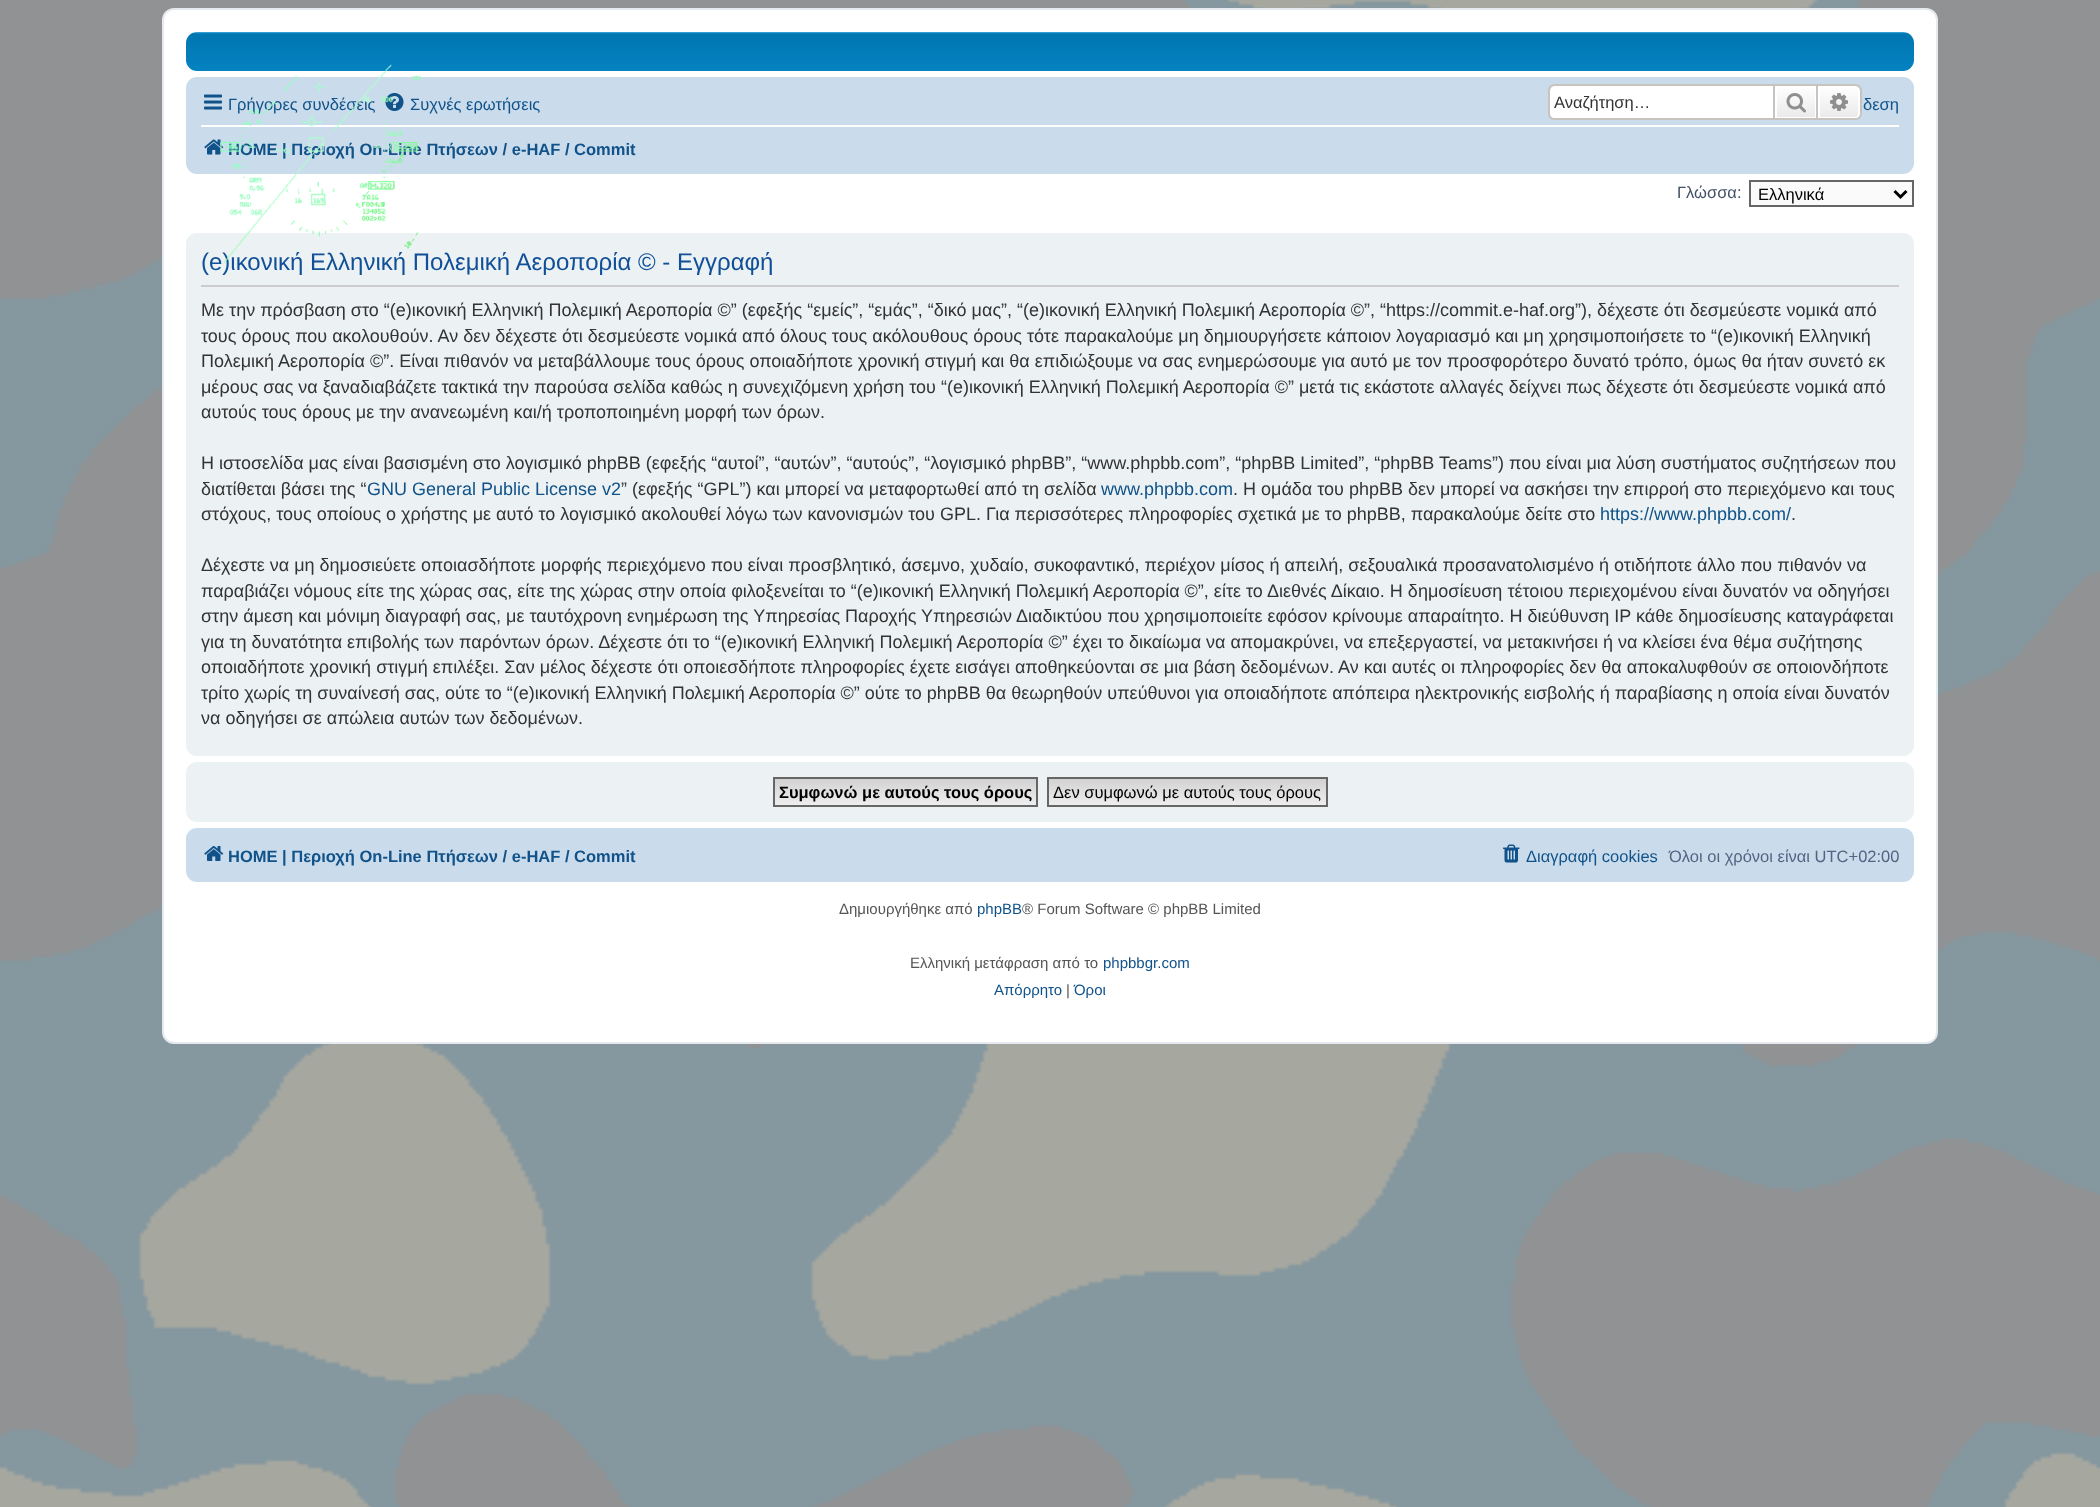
<!DOCTYPE html>
<meta charset="utf-8">
<style>body { margin: 0 } canvas { display: block }</style>
<canvas id="canvas" width="2100" height="1507"></canvas>
<img id="img1" src="images/1.png" hidden>
<img id="img2" src="images/2.png" hidden>
<img id="img3" src="images/4.png" hidden>
<img id="img4" src="images/5.png" hidden>
<img id="img5" src="images/6.png" hidden>
<img id="img6" src="images/7.png" hidden>
<img id="img7" src="images/8.png" hidden>
<img id="img8" src="images/9.png" hidden>
<img id="img9" src="images/10.png" hidden>
<img id="img10" src="images/3.png" hidden>
<script>
window.onload = function () {
    const canvas = document.getElementById('canvas');
    const context = canvas.getContext('2d');
    context.miterLimit = 4;
    context.fontKerning = 'normal';
    let gradient;

    context.fillStyle = 'rgb(255, 255, 255)';
    context.fillRect(0, 0, 2100, 1507);
    context.drawImage(document.getElementById('img1'), 0, 1062, 2100, 445);
    context.drawImage(document.getElementById('img2'), 0, 0, 2100, 1062);
    context.beginPath();
    context.roundRect(163, 9, 1774, 1034, 11);
    context.fill();
    context.strokeStyle = 'rgb(230, 233, 237)';
    context.lineWidth = 2;
    context.stroke();
    gradient = context.createLinearGradient(1050, 31, 1050, 169);
    gradient.addColorStop(0, 'rgb(106, 206, 255)');
    gradient.addColorStop(0.02, 'rgb(0, 118, 177)');
    gradient.addColorStop(1, 'rgb(18, 163, 235)');
    context.fillStyle = gradient;
    context.beginPath();
    context.roundRect(186, 32, 1728, 39, 11);
    context.fill();
    context.fillStyle = 'rgb(202, 220, 235)';
    context.beginPath();
    context.roundRect(186, 77, 1728, 97, 11);
    context.fill();
    context.fillStyle = 'rgb(255, 255, 255)';
    context.beginPath();
    context.roundRect(1550, 86, 223, 33, [5, 0, 0, 5]);
    context.fill();
    context.fillStyle = 'rgb(199, 195, 191)';
    context.beginPath();
    context.moveTo(1554, 84);
    context.lineTo(1773, 84);
    context.lineTo(1773, 120);
    context.lineTo(1554, 120);
    context.bezierCurveTo(1551, 120, 1548, 117, 1548, 114);
    context.lineTo(1548, 90);
    context.bezierCurveTo(1548, 87, 1551, 84, 1554, 84);
    context.closePath();
    context.moveTo(1554, 86);
    context.lineTo(1773, 86);
    context.lineTo(1773, 118);
    context.lineTo(1554, 118);
    context.bezierCurveTo(1552, 118, 1550, 116, 1550, 114);
    context.lineTo(1550, 90);
    context.bezierCurveTo(1550, 88, 1552, 86, 1554, 86);
    context.closePath();
    context.fill('evenodd');
    gradient = context.createLinearGradient(1796, 86, 1796, 119);
    gradient.addColorStop(0, 'rgb(255, 255, 255)');
    gradient.addColorStop(1, 'rgb(233, 233, 233)');
    context.fillStyle = gradient;
    context.fillRect(1777, 88, 38, 29);
    context.strokeStyle = 'rgb(255, 255, 255)';
    context.strokeRect(1776, 87, 40, 31);
    context.strokeStyle = 'rgb(199, 195, 191)';
    context.strokeRect(1774, 85, 43, 34);
    context.drawImage(document.getElementById('img3'), 1786, 93, 20, 20);
    gradient = context.createLinearGradient(1839, 86, 1839, 119);
    gradient.addColorStop(0, 'rgb(255, 255, 255)');
    gradient.addColorStop(1, 'rgb(233, 233, 233)');
    context.fillStyle = gradient;
    context.beginPath();
    context.roundRect(1819, 87, 40, 31, [0, 4, 4, 0]);
    context.fill();
    context.strokeStyle = 'rgb(255, 255, 255)';
    context.stroke();
    context.fillStyle = 'rgb(199, 195, 191)';
    context.beginPath();
    context.moveTo(1818, 84);
    context.lineTo(1856, 84);
    context.bezierCurveTo(1859, 84, 1862, 87, 1862, 90);
    context.lineTo(1862, 114);
    context.bezierCurveTo(1862, 117, 1859, 120, 1856, 120);
    context.lineTo(1818, 120);
    context.closePath();
    context.moveTo(1818, 86);
    context.lineTo(1856, 86);
    context.bezierCurveTo(1858, 86, 1860, 88, 1860, 90);
    context.lineTo(1860, 114);
    context.bezierCurveTo(1860, 116, 1858, 118, 1856, 118);
    context.lineTo(1818, 118);
    context.closePath();
    context.fill('evenodd');
    context.drawImage(document.getElementById('img4'), 1830, 93, 18, 18);
    context.drawImage(document.getElementById('img5'), 204, 94, 18, 16);
    context.drawImage(document.getElementById('img6'), 385, 93, 19, 18);
    context.fillStyle = 'rgb(255, 255, 255)';
    context.fillRect(201, 125, 1698, 2);
    context.drawImage(document.getElementById('img7'), 204, 139, 20, 16);
    context.fillStyle = 'rgb(250, 250, 250)';
    context.beginPath();
    context.rect(1750, 181, 163, 25);
    context.fill();
    context.strokeStyle = 'rgb(102, 102, 102)';
    context.stroke();
    context.beginPath();
    context.moveTo(1894.5, 191);
    context.lineTo(1900.5, 197);
    context.lineTo(1906.5, 191);
    context.strokeStyle = 'rgb(0, 0, 0)';
    context.lineWidth = 3;
    context.stroke();
    context.fillStyle = 'rgb(236, 241, 243)';
    context.beginPath();
    context.roundRect(186, 233, 1728, 523, 11);
    context.fill();
    context.fillStyle = 'rgb(204, 204, 204)';
    context.fillRect(201, 285, 1698, 2);
    context.fillStyle = 'rgb(236, 241, 243)';
    context.beginPath();
    context.roundRect(186, 762, 1728, 60, 11);
    context.fill();
    gradient = context.createLinearGradient(905, 779, 905, 806);
    gradient.addColorStop(0, 'rgb(210, 210, 210)');
    gradient.addColorStop(1, 'rgb(239, 239, 239)');
    context.fillStyle = gradient;
    context.fillRect(775, 779, 261, 26);
    context.strokeStyle = 'rgb(102, 102, 102)';
    context.lineWidth = 2;
    context.strokeRect(774, 778, 263, 28);
    gradient = context.createLinearGradient(1187, 779, 1187, 806);
    gradient.addColorStop(0, 'rgb(210, 210, 210)');
    gradient.addColorStop(1, 'rgb(239, 239, 239)');
    context.fillStyle = gradient;
    context.fillRect(1049, 779, 277, 26);
    context.strokeRect(1048, 778, 279, 28);
    context.fillStyle = 'rgb(202, 220, 235)';
    context.beginPath();
    context.roundRect(186, 828, 1728, 54, 11);
    context.fill();
    context.drawImage(document.getElementById('img8'), 204, 846, 20, 15);
    context.drawImage(document.getElementById('img9'), 1503, 844, 17, 19);
    context.save();
    context.beginPath();
    context.rect(1554, 93, 209, 18);
    context.clip();
    context.font = '16.5px Liberation Sans';
    context.fillStyle = 'rgb(51, 51, 51)';
    context.fillText('Αναζήτηση…', 1554, 108);
    context.restore();
    context.font = '16.5px Liberation Sans';
    context.fillStyle = 'rgb(16, 82, 137)';
    context.fillText('Γρήγορες συνδέσεις', 228, 110);
    context.fillText('Συχνές ερωτήσεις', 410, 110);
    context.fillText('δεση', 1863, 110);
    context.font = 'bold 16.5px Liberation Sans';
    context.fillText('HOME | Περιοχή On-Line Πτήσεων / e-HAF / Commit', 228, 155);
    context.font = '16.5px Liberation Sans';
    context.fillStyle = 'rgb(66, 80, 103)';
    context.fillText('Γλώσσα:', 1677, 198);
    context.fillStyle = 'rgb(0, 0, 0)';
    context.fillText('Ελληνικά', 1758, 200);
    context.font = '24px Liberation Sans';
    context.fillStyle = 'rgb(17, 80, 152)';
    context.fillText('(e)ικονική Ελληνική Πολεμική Αεροπορία © - Εγγραφή', 201, 270);
    context.drawImage(document.getElementById('img10'), 220, 64, 201, 200);
    context.font = '18px Liberation Sans';
    context.fillStyle = 'rgb(51, 51, 51)';
    context.fillText('Με την πρόσβαση στο “(e)ικονική Ελληνική Πολεμική Αεροπορία ©” (εφεξής “εμείς”, “εμάς”, “δικό μας”, “(e)ικονική Ελληνική Πολεμική Αεροπορία ©”, “https://commit.e-haf.org”), δέχεστε ότι δεσμεύεστε νομικά από', 201, 316);
    context.fillText('τους όρους που ακολουθούν. Αν δεν δέχεστε ότι δεσμεύεστε νομικά από όλους τους ακόλουθους όρους τότε παρακαλούμε μη δημιουργήσετε κάποιον λογαριασμό και μη χρησιμοποιήσετε το “(e)ικονική Ελληνική', 201, 342);
    context.fillText('Πολεμική Αεροπορία ©”. Είναι πιθανόν να μεταβάλλουμε τους όρους οποιαδήποτε χρονική στιγμή και θα επιδιώξουμε να σας ενημερώσουμε για αυτό με τον προσφορότερο δυνατό τρόπο, όμως θα ήταν συνετό εκ', 201, 367);
    context.fillText('μέρους σας να ξαναδιαβάζετε τακτικά την παρούσα σελίδα καθώς η συνεχιζόμενη χρήση του “(e)ικονική Ελληνική Πολεμική Αεροπορία ©” μετά τις εκάστοτε αλλαγές δείχνει πως δέχεστε ότι δεσμεύεστε νομικά από', 201, 393);
    context.fillText('αυτούς τους όρους με την ανανεωμένη και/ή τροποποιημένη μορφή των όρων.', 201, 418);
    context.fillText('Η ιστοσελίδα μας είναι βασισμένη στο λογισμικό phpBB (εφεξής “αυτοί”, “αυτών”, “αυτούς”, “λογισμικό phpBB”, “www.phpbb.com”, “phpBB Limited”, “phpBB Teams”) που είναι μια λύση συστήματος συζητήσεων που', 201, 469);
    context.fillText('διατίθεται βάσει της “', 201, 495);
    context.fillStyle = 'rgb(16, 82, 137)';
    context.fillText('GNU General Public License v2', 367, 495);
    context.fillStyle = 'rgb(51, 51, 51)';
    context.fillText('” (εφεξής “GPL”) και μπορεί να μεταφορτωθεί από τη σελίδα', 621, 495);
    context.fillStyle = 'rgb(16, 82, 137)';
    context.fillText('www.phpbb.com', 1101, 495);
    context.fillStyle = 'rgb(51, 51, 51)';
    context.fillText('. Η ομάδα του phpBB δεν μπορεί να ασκήσει την επιρροή στο περιεχόμενο και τους', 1233, 495);
    context.fillText('στόχους, τους οποίους ο χρήστης με αυτό το λογισμικό ακολουθεί λόγω των κανονισμών του GPL. Για περισσότερες πληροφορίες σχετικά με το phpBB, παρακαλούμε δείτε στο', 201, 520);
    context.fillStyle = 'rgb(16, 82, 137)';
    context.fillText('https://www.phpbb.com/', 1600, 520);
    context.fillStyle = 'rgb(51, 51, 51)';
    context.fillText('.', 1791, 520);
    context.fillText('Δέχεστε να μη δημοσιεύετε οποιασδήποτε μορφής περιεχόμενο που είναι προσβλητικό, άσεμνο, χυδαίο, συκοφαντικό, περιέχον μίσος ή απειλή, σεξουαλικά προσανατολισμένο ή οτιδήποτε άλλο που πιθανόν να', 201, 571);
    context.fillText('παραβιάζει νόμους είτε της χώρας σας, είτε της χώρας στην οποία φιλοξενείται το “(e)ικονική Ελληνική Πολεμική Αεροπορία ©”, είτε το Διεθνές Δίκαιο. Η δημοσίευση τέτοιου περιεχομένου είναι δυνατόν να οδηγήσει', 201, 597);
    context.fillText('στην άμεση και μόνιμη διαγραφή σας, με ταυτόχρονη ενημέρωση της Υπηρεσίας Παροχής Υπηρεσιών Διαδικτύου που χρησιμοποιείτε εφόσον κρίνουμε απαραίτητο. Η διεύθυνση IP κάθε δημοσίευσης καταγράφεται', 201, 622);
    context.fillText('για τη δυνατότητα επιβολής των παρόντων όρων. Δέχεστε ότι το “(e)ικονική Ελληνική Πολεμική Αεροπορία ©” έχει το δικαίωμα να απομακρύνει, να επεξεργαστεί, να μετακινήσει ή να κλείσει ένα θέμα συζήτησης', 201, 648);
    context.fillText('οποιαδήποτε χρονική στιγμή επιλέξει. Σαν μέλος δέχεστε ότι οποιεσδήποτε πληροφορίες έχετε εισάγει αποθηκεύονται σε μια βάση δεδομένων. Αν και αυτές οι πληροφορίες δεν θα αποκαλυφθούν σε οποιονδήποτε', 201, 673);
    context.fillText('τρίτο χωρίς τη συναίνεσή σας, ούτε το “(e)ικονική Ελληνική Πολεμική Αεροπορία ©” ούτε το phpBB θα θεωρηθούν υπεύθυνοι για οποιαδήποτε απόπειρα ηλεκτρονικής εισβολής ή παραβίασης η οποία είναι δυνατόν', 201, 699);
    context.fillText('να οδηγήσει σε απώλεια αυτών των δεδομένων.', 201, 724);
    context.font = 'bold 16.5px Liberation Sans';
    context.fillStyle = 'rgb(0, 0, 0)';
    context.fillText('Συμφωνώ με αυτούς τους όρους', 779, 798);
    context.font = '16.5px Liberation Sans';
    context.fillText('Δεν συμφωνώ με αυτούς τους όρους', 1053, 798);
    context.font = 'bold 16.5px Liberation Sans';
    context.fillStyle = 'rgb(16, 82, 137)';
    context.fillText('HOME | Περιοχή On-Line Πτήσεων / e-HAF / Commit', 228, 862);
    context.font = '16.5px Liberation Sans';
    context.fillText('Διαγραφή cookies', 1526, 862);
    context.fillStyle = 'rgb(83, 100, 130)';
    context.fillText('Όλοι οι χρόνοι είναι UTC+02:00', 1669, 862);
    context.font = '15px Liberation Sans';
    context.fillStyle = 'rgb(85, 85, 85)';
    context.fillText('Δημιουργήθηκε από', 839, 914);
    context.fillStyle = 'rgb(16, 82, 137)';
    context.fillText('phpBB', 977, 914);
    context.fillStyle = 'rgb(85, 85, 85)';
    context.fillText('® Forum Software © phpBB Limited', 1022, 914);
    context.fillText('Ελληνική μετάφραση από το', 910, 968);
    context.fillStyle = 'rgb(16, 82, 137)';
    context.fillText('phpbbgr.com', 1103, 968);
    context.fillText('Απόρρητο', 994, 995);
    context.fillStyle = 'rgb(85, 85, 85)';
    context.fillText('|', 1066, 995);
    context.fillStyle = 'rgb(16, 82, 137)';
    context.fillText('Όροι', 1074, 995);
};
</script>
